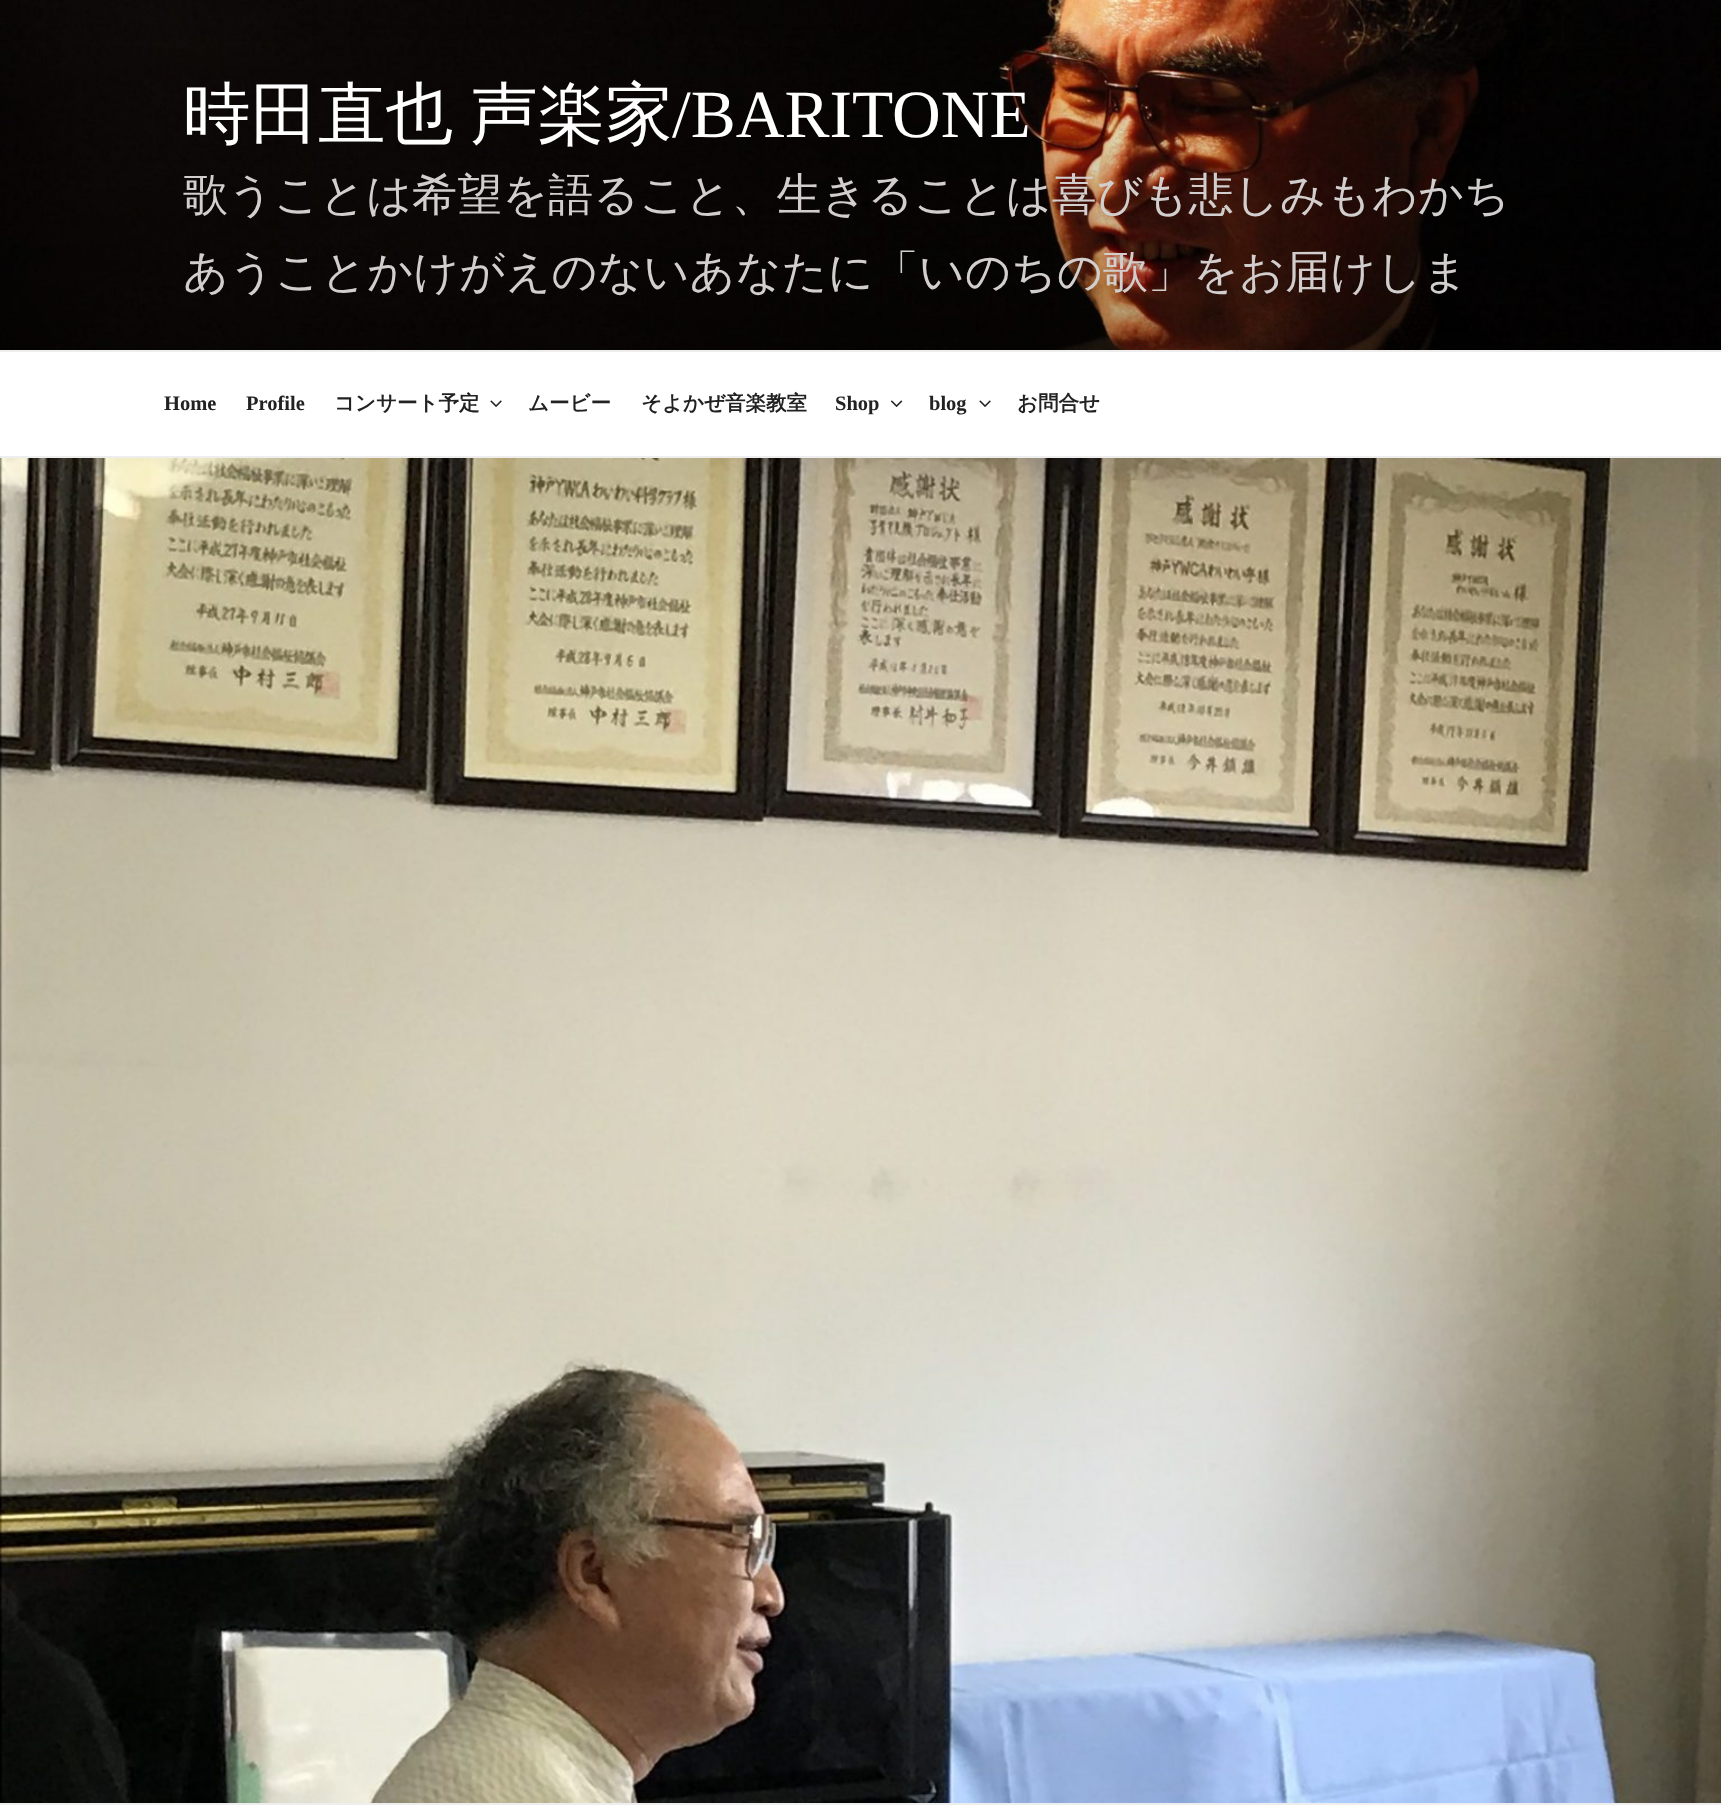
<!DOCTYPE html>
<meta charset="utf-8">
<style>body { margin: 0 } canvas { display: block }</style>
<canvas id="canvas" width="1721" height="1812"></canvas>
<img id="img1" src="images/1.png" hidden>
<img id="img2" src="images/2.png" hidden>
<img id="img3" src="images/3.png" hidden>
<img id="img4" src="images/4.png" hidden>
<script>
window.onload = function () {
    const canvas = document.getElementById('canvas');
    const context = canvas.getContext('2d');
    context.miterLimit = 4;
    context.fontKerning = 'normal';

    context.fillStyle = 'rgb(255, 255, 255)';
    context.fillRect(0, 0, 1721, 1812);
    context.drawImage(document.getElementById('img1'), 0, 0, 1721, 350);
    context.fillStyle = 'rgb(238, 238, 238)';
    context.fillRect(0, 350, 1721, 2);
    context.fillRect(0, 456, 1721, 2);
    context.drawImage(document.getElementById('img2'), 490, 400, 12, 7);
    context.drawImage(document.getElementById('img3'), 890, 400, 13, 7);
    context.drawImage(document.getElementById('img2'), 979, 400, 12, 7);
    context.fillRect(0, 1803, 1721, 2);
    context.drawImage(document.getElementById('img4'), 0, 458, 1721, 1345);
    context.wordSpacing = '-3px';
    context.font = '500 67.5px WenQuanYi Zen Hei';
    context.fillStyle = 'rgb(255, 255, 255)';
    context.fillText('時田直也 声楽家', 183, 137);
    context.wordSpacing = '0px';
    context.font = '67.5px Liberation Serif';
    context.fillText('/BARITONE', 672, 137);
    context.font = '500 45px WenQuanYi Zen Hei';
    context.fillStyle = 'rgb(209, 206, 205)';
    context.fillText('歌うことは希望を語ること、生きることは喜びも悲しみもわかち', 183, 210);
    context.fillText('あうことかけがえのないあなたに「いのちの歌」をお届けしま', 183, 287);
    context.font = 'bold 20.5px Liberation Serif';
    context.fillStyle = 'rgb(34, 34, 34)';
    context.fillText('Home', 164, 410);
    context.fillText('Profile', 246, 410);
    context.font = 'bold 20.5px WenQuanYi Zen Hei';
    context.fillText('コンサート予定', 334, 410);
    context.fillText('ムービー', 528, 410);
    context.fillText('そよかぜ音楽教室', 641, 410);
    context.font = 'bold 20.5px Liberation Serif';
    context.fillText('Shop', 835, 410);
    context.fillText('blog', 929, 410);
    context.font = 'bold 20.5px WenQuanYi Zen Hei';
    context.fillText('お問合せ', 1017, 410);
};
</script>
